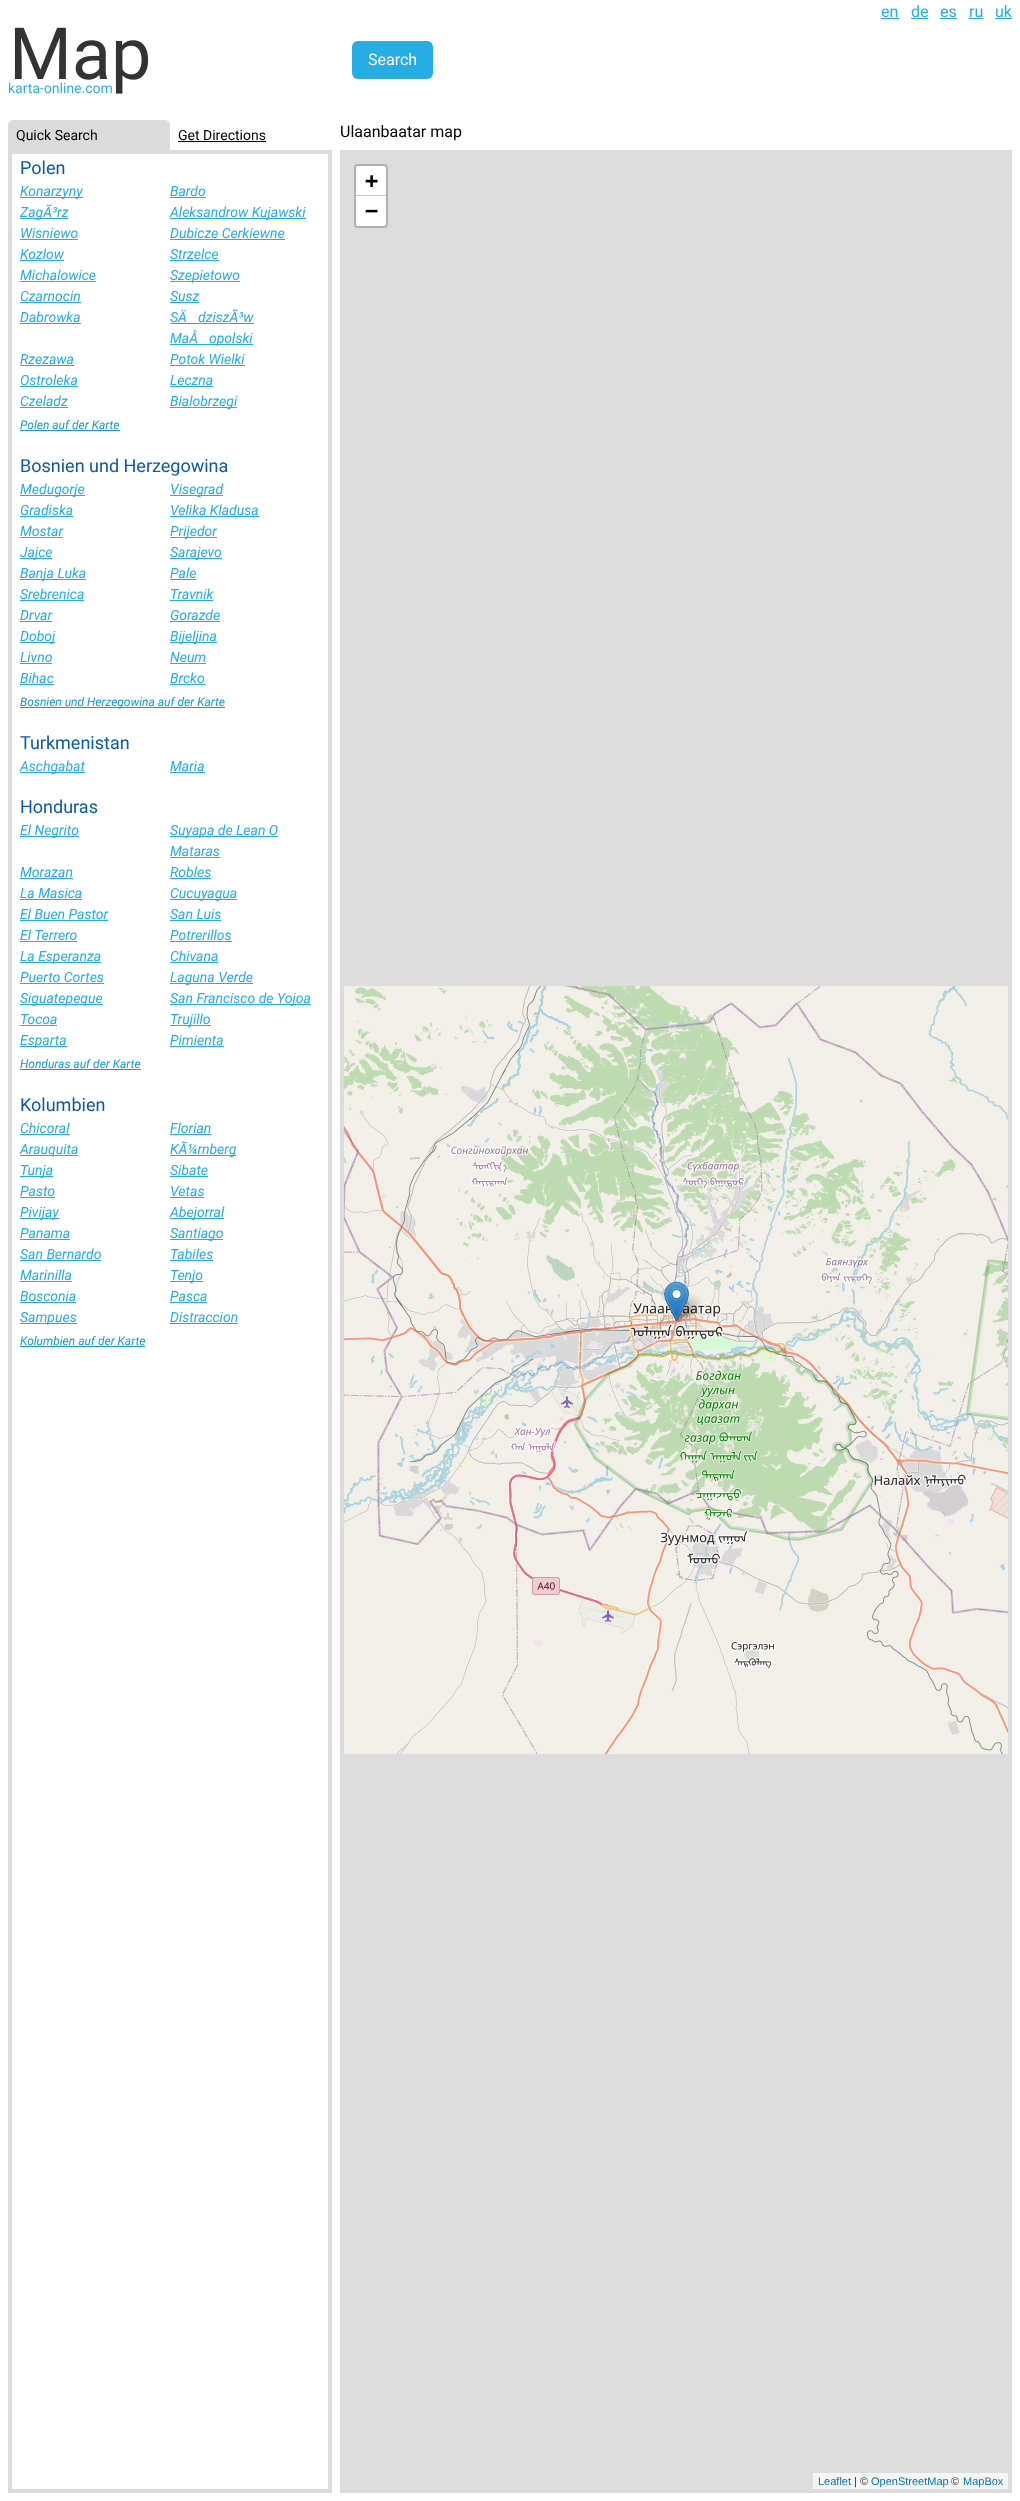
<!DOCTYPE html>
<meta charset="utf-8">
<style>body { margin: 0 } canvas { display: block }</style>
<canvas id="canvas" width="1020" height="2501"></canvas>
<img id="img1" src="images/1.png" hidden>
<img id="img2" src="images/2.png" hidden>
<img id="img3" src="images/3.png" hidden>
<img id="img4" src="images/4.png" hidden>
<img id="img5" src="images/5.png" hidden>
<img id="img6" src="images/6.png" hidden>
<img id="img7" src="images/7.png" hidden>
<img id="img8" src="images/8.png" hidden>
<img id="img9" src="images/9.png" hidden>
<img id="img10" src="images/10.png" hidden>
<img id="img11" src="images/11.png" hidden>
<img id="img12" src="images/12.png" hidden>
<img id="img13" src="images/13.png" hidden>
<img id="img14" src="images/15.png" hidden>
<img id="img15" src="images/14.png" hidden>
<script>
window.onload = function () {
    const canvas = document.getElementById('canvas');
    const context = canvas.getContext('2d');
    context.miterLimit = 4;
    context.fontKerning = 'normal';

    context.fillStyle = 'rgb(255, 255, 255)';
    context.fillRect(0, 0, 1020, 2501);
    context.fillStyle = 'rgb(38, 173, 228)';
    context.fillRect(881, 18, 18, 1);
    context.fillRect(911, 18, 17, 1);
    context.fillRect(940, 18, 17, 1);
    context.fillRect(969, 18, 14, 1);
    context.fillRect(995, 18, 17, 1);
    context.drawImage(document.getElementById('img1'), 8, 27, 141, 67);
    context.beginPath();
    context.roundRect(352, 41, 81, 38, 6);
    context.fill();
    context.fillStyle = 'rgb(219, 219, 219)';
    context.beginPath();
    context.roundRect(8, 120, 162, 30, [5, 5, 0, 0]);
    context.fill();
    context.fillStyle = 'rgb(0, 0, 0)';
    context.fillRect(178, 141, 88, 1);
    context.strokeStyle = 'rgb(219, 219, 219)';
    context.lineWidth = 4;
    context.strokeRect(10, 152, 320, 2339);
    context.fillStyle = 'rgb(38, 173, 228)';
    context.fillRect(20, 197, 63, 1);
    context.fillRect(170, 197, 36, 1);
    context.fillRect(20, 218, 48, 1);
    context.fillRect(170, 218, 136, 1);
    context.fillRect(20, 239, 58, 1);
    context.fillRect(170, 239, 115, 1);
    context.fillRect(20, 260, 44, 1);
    context.fillRect(170, 260, 49, 1);
    context.fillRect(20, 281, 76, 1);
    context.fillRect(170, 281, 70, 1);
    context.fillRect(20, 302, 61, 1);
    context.fillRect(170, 302, 29, 1);
    context.fillRect(20, 323, 61, 1);
    context.fillRect(170, 323, 84, 1);
    context.fillRect(170, 344, 83, 1);
    context.fillRect(20, 365, 54, 1);
    context.fillRect(170, 365, 75, 1);
    context.fillRect(20, 386, 58, 1);
    context.fillRect(170, 386, 43, 1);
    context.fillRect(20, 407, 48, 1);
    context.fillRect(170, 407, 67, 1);
    context.fillStyle = 'rgb(21, 156, 211)';
    context.fillRect(20, 430, 100, 1);
    context.fillStyle = 'rgb(38, 173, 228)';
    context.fillRect(20, 495, 65, 1);
    context.fillRect(170, 495, 53, 1);
    context.fillRect(20, 516, 53, 1);
    context.fillRect(170, 516, 89, 1);
    context.fillRect(20, 537, 43, 1);
    context.fillRect(170, 537, 47, 1);
    context.fillRect(20, 558, 32, 1);
    context.fillRect(170, 558, 52, 1);
    context.fillRect(20, 579, 66, 1);
    context.fillRect(170, 579, 26, 1);
    context.fillRect(20, 600, 64, 1);
    context.fillRect(170, 600, 43, 1);
    context.fillRect(20, 621, 32, 1);
    context.fillRect(170, 621, 50, 1);
    context.fillRect(20, 642, 35, 1);
    context.fillRect(170, 642, 47, 1);
    context.fillRect(20, 663, 32, 1);
    context.fillRect(170, 663, 36, 1);
    context.fillRect(20, 684, 34, 1);
    context.fillRect(170, 684, 35, 1);
    context.fillStyle = 'rgb(21, 156, 211)';
    context.fillRect(20, 707, 205, 1);
    context.fillStyle = 'rgb(38, 173, 228)';
    context.fillRect(20, 772, 65, 1);
    context.fillRect(170, 772, 35, 1);
    context.fillRect(20, 836, 59, 1);
    context.fillRect(170, 836, 108, 1);
    context.fillRect(170, 857, 50, 1);
    context.fillRect(20, 878, 53, 1);
    context.fillRect(170, 878, 41, 1);
    context.fillRect(20, 899, 62, 1);
    context.fillRect(170, 899, 67, 1);
    context.fillRect(20, 920, 88, 1);
    context.fillRect(170, 920, 51, 1);
    context.fillRect(20, 941, 57, 1);
    context.fillRect(170, 941, 62, 1);
    context.fillRect(20, 962, 81, 1);
    context.fillRect(170, 962, 48, 1);
    context.fillRect(20, 983, 84, 1);
    context.fillRect(170, 983, 83, 1);
    context.fillRect(20, 1004, 83, 1);
    context.fillRect(170, 1004, 141, 1);
    context.fillRect(20, 1025, 37, 1);
    context.fillRect(170, 1025, 41, 1);
    context.fillRect(20, 1046, 47, 1);
    context.fillRect(170, 1046, 54, 1);
    context.fillStyle = 'rgb(21, 156, 211)';
    context.fillRect(20, 1069, 121, 1);
    context.fillStyle = 'rgb(38, 173, 228)';
    context.fillRect(20, 1134, 50, 1);
    context.fillRect(170, 1134, 41, 1);
    context.fillRect(20, 1155, 58, 1);
    context.fillRect(170, 1155, 66, 1);
    context.fillRect(20, 1176, 33, 1);
    context.fillRect(170, 1176, 38, 1);
    context.fillRect(20, 1197, 35, 1);
    context.fillRect(170, 1197, 34, 1);
    context.fillRect(20, 1218, 39, 1);
    context.fillRect(170, 1218, 54, 1);
    context.fillRect(20, 1239, 50, 1);
    context.fillRect(170, 1239, 53, 1);
    context.fillRect(20, 1260, 81, 1);
    context.fillRect(170, 1260, 43, 1);
    context.fillRect(20, 1281, 52, 1);
    context.fillRect(170, 1281, 33, 1);
    context.fillRect(20, 1302, 56, 1);
    context.fillRect(170, 1302, 37, 1);
    context.fillRect(20, 1323, 57, 1);
    context.fillRect(170, 1323, 68, 1);
    context.fillStyle = 'rgb(21, 156, 211)';
    context.fillRect(20, 1346, 125, 1);
    context.fillStyle = 'rgb(221, 221, 221)';
    context.beginPath();
    context.rect(342, 152, 668, 2339);
    context.fill();
    context.stroke();
    context.beginPath();
    context.roundRect(355, 165, 32, 62, 3);
    context.strokeStyle = 'rgb(177, 177, 177)';
    context.lineWidth = 2;
    context.stroke();
    context.fillStyle = 'rgb(255, 255, 255)';
    context.beginPath();
    context.roundRect(356, 166, 30, 29, [2, 2, 0, 0]);
    context.fill();
    context.fillStyle = 'rgb(204, 204, 204)';
    context.fillRect(356, 195, 30, 1);
    context.fillStyle = 'rgb(255, 255, 255)';
    context.beginPath();
    context.roundRect(356, 196, 30, 30, [0, 0, 2, 2]);
    context.fill();
    context.fillStyle = 'rgb(245, 245, 245)';
    context.fillRect(813, 2473, 195, 16);
    context.drawImage(document.getElementById('img2'), 344, 986, 46, 256);
    context.drawImage(document.getElementById('img3'), 390, 986, 256, 256);
    context.drawImage(document.getElementById('img4'), 646, 986, 256, 256);
    context.drawImage(document.getElementById('img5'), 902, 986, 106, 256);
    context.drawImage(document.getElementById('img6'), 344, 1242, 46, 256);
    context.drawImage(document.getElementById('img7'), 390, 1242, 256, 256);
    context.drawImage(document.getElementById('img8'), 646, 1242, 256, 256);
    context.drawImage(document.getElementById('img9'), 902, 1242, 106, 256);
    context.drawImage(document.getElementById('img10'), 344, 1498, 46, 256);
    context.drawImage(document.getElementById('img11'), 390, 1498, 256, 256);
    context.drawImage(document.getElementById('img12'), 646, 1498, 256, 256);
    context.drawImage(document.getElementById('img13'), 902, 1498, 106, 256);
    context.drawImage(document.getElementById('img14'), 674, 1294, 29, 28);
    context.drawImage(document.getElementById('img15'), 664, 1281, 25, 41);
    context.font = '16px Roboto';
    context.fillStyle = 'rgb(38, 173, 228)';
    context.fillText('en', 881, 17);
    context.fillText('de', 911, 17);
    context.fillText('es', 940, 17);
    context.fillText('ru', 969, 17);
    context.fillText('uk', 995, 17);
    context.fillStyle = 'rgb(255, 255, 255)';
    context.fillText('Search', 368, 65);
    context.font = '14px Roboto';
    context.fillStyle = 'rgb(0, 0, 0)';
    context.fillText('Quick Search', 16, 140);
    context.fillText('Get Directions', 178, 140);
    context.font = '18px Roboto';
    context.fillStyle = 'rgb(11, 90, 163)';
    context.fillText('Polen', 20, 174);
    context.font = 'italic 14px Roboto';
    context.fillStyle = 'rgb(38, 173, 228)';
    context.fillText('Konarzyny', 20, 196);
    context.fillText('Bardo', 170, 196);
    context.fillText('ZagÃ³rz', 20, 217);
    context.fillText('Aleksandrow Kujawski', 170, 217);
    context.fillText('Wisniewo', 20, 238);
    context.fillText('Dubicze Cerkiewne', 170, 238);
    context.fillText('Kozlow', 20, 259);
    context.fillText('Strzelce', 170, 259);
    context.fillText('Michalowice', 20, 280);
    context.fillText('Szepietowo', 170, 280);
    context.fillText('Czarnocin', 20, 301);
    context.fillText('Susz', 170, 301);
    context.fillText('Dabrowka', 20, 322);
    context.fillText('SÄ', 170, 322);
    context.fillText('dziszÃ³w', 198, 322);
    context.fillText('MaÅ', 170, 343);
    context.fillText('opolski', 209, 343);
    context.fillText('Rzezawa', 20, 364);
    context.fillText('Potok Wielki', 170, 364);
    context.fillText('Ostroleka', 20, 385);
    context.fillText('Leczna', 170, 385);
    context.fillText('Czeladz', 20, 406);
    context.fillText('Bialobrzegi', 170, 406);
    context.font = 'italic 12px Roboto';
    context.fillStyle = 'rgb(21, 156, 211)';
    context.fillText('Polen auf der Karte', 20, 429);
    context.font = '18px Roboto';
    context.fillStyle = 'rgb(11, 90, 163)';
    context.fillText('Bosnien und Herzegowina', 20, 472);
    context.font = 'italic 14px Roboto';
    context.fillStyle = 'rgb(38, 173, 228)';
    context.fillText('Medugorje', 20, 494);
    context.fillText('Visegrad', 170, 494);
    context.fillText('Gradiska', 20, 515);
    context.fillText('Velika Kladusa', 170, 515);
    context.fillText('Mostar', 20, 536);
    context.fillText('Prijedor', 170, 536);
    context.fillText('Jajce', 20, 557);
    context.fillText('Sarajevo', 170, 557);
    context.fillText('Banja Luka', 20, 578);
    context.fillText('Pale', 170, 578);
    context.fillText('Srebrenica', 20, 599);
    context.fillText('Travnik', 170, 599);
    context.fillText('Drvar', 20, 620);
    context.fillText('Gorazde', 170, 620);
    context.fillText('Doboj', 20, 641);
    context.fillText('Bijeljina', 170, 641);
    context.fillText('Livno', 20, 662);
    context.fillText('Neum', 170, 662);
    context.fillText('Bihac', 20, 683);
    context.fillText('Brcko', 170, 683);
    context.font = 'italic 12px Roboto';
    context.fillStyle = 'rgb(21, 156, 211)';
    context.fillText('Bosnien und Herzegowina auf der Karte', 20, 706);
    context.font = '18px Roboto';
    context.fillStyle = 'rgb(11, 90, 163)';
    context.fillText('Turkmenistan', 20, 749);
    context.font = 'italic 14px Roboto';
    context.fillStyle = 'rgb(38, 173, 228)';
    context.fillText('Aschgabat', 20, 771);
    context.fillText('Maria', 170, 771);
    context.font = '18px Roboto';
    context.fillStyle = 'rgb(11, 90, 163)';
    context.fillText('Honduras', 20, 813);
    context.font = 'italic 14px Roboto';
    context.fillStyle = 'rgb(38, 173, 228)';
    context.fillText('El Negrito', 20, 835);
    context.fillText('Suyapa de Lean O', 170, 835);
    context.fillText('Mataras', 170, 856);
    context.fillText('Morazan', 20, 877);
    context.fillText('Robles', 170, 877);
    context.fillText('La Masica', 20, 898);
    context.fillText('Cucuyagua', 170, 898);
    context.fillText('El Buen Pastor', 20, 919);
    context.fillText('San Luis', 170, 919);
    context.fillText('El Terrero', 20, 940);
    context.fillText('Potrerillos', 170, 940);
    context.fillText('La Esperanza', 20, 961);
    context.fillText('Chivana', 170, 961);
    context.fillText('Puerto Cortes', 20, 982);
    context.fillText('Laguna Verde', 170, 982);
    context.fillText('Siguatepeque', 20, 1003);
    context.fillText('San Francisco de Yojoa', 170, 1003);
    context.fillText('Tocoa', 20, 1024);
    context.fillText('Trujillo', 170, 1024);
    context.fillText('Esparta', 20, 1045);
    context.fillText('Pimienta', 170, 1045);
    context.font = 'italic 12px Roboto';
    context.fillStyle = 'rgb(21, 156, 211)';
    context.fillText('Honduras auf der Karte', 20, 1068);
    context.font = '18px Roboto';
    context.fillStyle = 'rgb(11, 90, 163)';
    context.fillText('Kolumbien', 20, 1111);
    context.font = 'italic 14px Roboto';
    context.fillStyle = 'rgb(38, 173, 228)';
    context.fillText('Chicoral', 20, 1133);
    context.fillText('Florian', 170, 1133);
    context.fillText('Arauquita', 20, 1154);
    context.fillText('KÃ¼rnberg', 170, 1154);
    context.fillText('Tunja', 20, 1175);
    context.fillText('Sibate', 170, 1175);
    context.fillText('Pasto', 20, 1196);
    context.fillText('Vetas', 170, 1196);
    context.fillText('Pivijay', 20, 1217);
    context.fillText('Abejorral', 170, 1217);
    context.fillText('Panama', 20, 1238);
    context.fillText('Santiago', 170, 1238);
    context.fillText('San Bernardo', 20, 1259);
    context.fillText('Tabiles', 170, 1259);
    context.fillText('Marinilla', 20, 1280);
    context.fillText('Tenjo', 170, 1280);
    context.fillText('Bosconia', 20, 1301);
    context.fillText('Pasca', 170, 1301);
    context.fillText('Sampues', 20, 1322);
    context.fillText('Distraccion', 170, 1322);
    context.font = 'italic 12px Roboto';
    context.fillStyle = 'rgb(21, 156, 211)';
    context.fillText('Kolumbien auf der Karte', 20, 1345);
    context.font = '16px Roboto';
    context.fillStyle = 'rgb(0, 0, 0)';
    context.fillText('Ulaanbaatar map', 340, 137);
    context.font = 'bold 22px DejaVu Sans Mono';
    context.fillText('+', 365, 188);
    context.fillText('−', 365, 218);
    context.font = '11px Liberation Sans';
    context.fillStyle = 'rgb(0, 120, 168)';
    context.fillText('Leaflet', 818, 2485);
    context.fillStyle = 'rgb(51, 51, 51)';
    context.fillText('| ©', 854, 2485);
    context.fillStyle = 'rgb(0, 120, 168)';
    context.fillText('OpenStreetMap', 871, 2485);
    context.fillStyle = 'rgb(51, 51, 51)';
    context.fillText('©', 951, 2485);
    context.fillStyle = 'rgb(0, 120, 168)';
    context.fillText('MapBox', 963, 2485);
};
</script>
